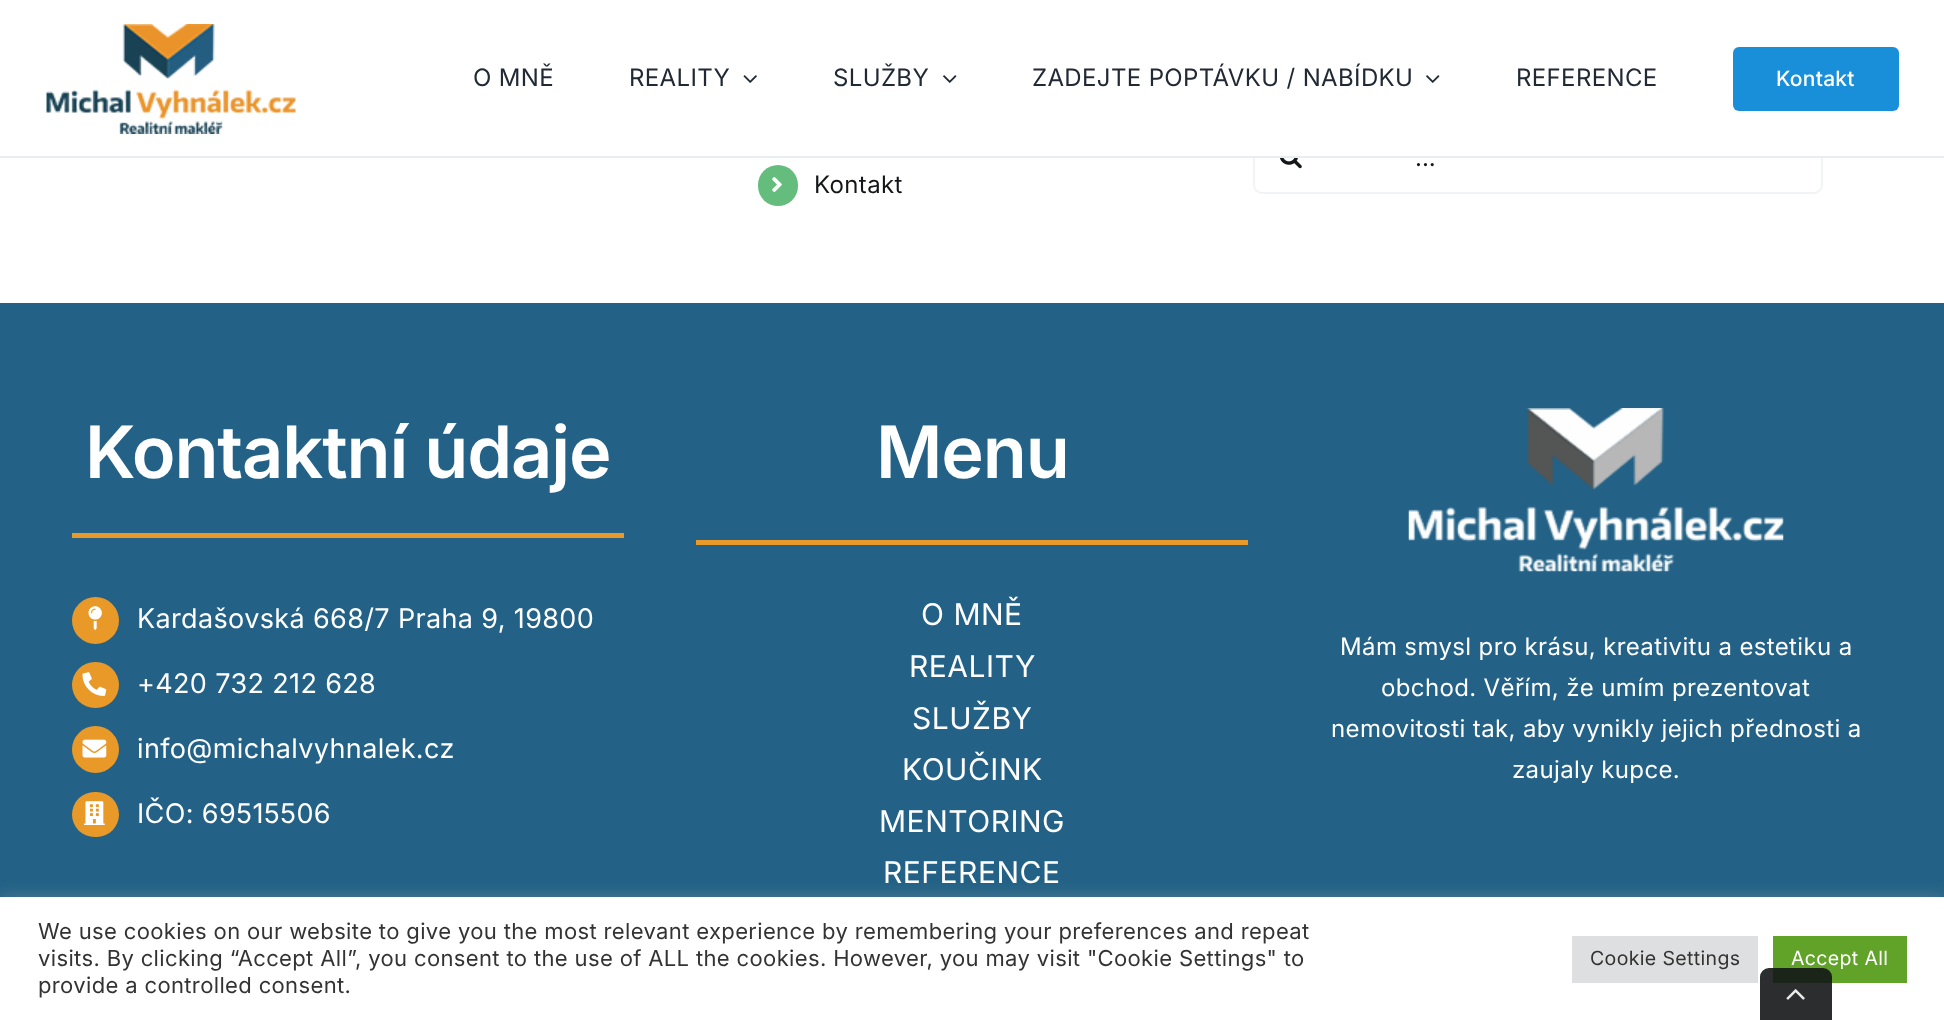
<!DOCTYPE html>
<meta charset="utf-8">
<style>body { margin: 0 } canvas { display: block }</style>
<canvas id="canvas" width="1944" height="1020"></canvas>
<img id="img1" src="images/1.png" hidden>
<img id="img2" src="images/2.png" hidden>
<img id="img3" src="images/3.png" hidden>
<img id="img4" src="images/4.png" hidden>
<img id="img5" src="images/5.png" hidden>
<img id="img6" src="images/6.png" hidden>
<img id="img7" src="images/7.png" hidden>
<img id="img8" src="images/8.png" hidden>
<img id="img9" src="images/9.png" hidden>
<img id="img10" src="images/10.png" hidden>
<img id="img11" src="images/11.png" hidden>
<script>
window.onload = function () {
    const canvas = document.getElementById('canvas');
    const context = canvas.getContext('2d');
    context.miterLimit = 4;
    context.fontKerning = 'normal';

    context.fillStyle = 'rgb(255, 255, 255)';
    context.fillRect(0, 0, 1944, 1020);
    context.beginPath();
    context.roundRect(1254, 120, 568, 73, 8);
    context.strokeStyle = 'rgb(242, 243, 245)';
    context.lineWidth = 2;
    context.stroke();
    context.fillRect(1253, 119, 570, 37);
    context.fillStyle = 'rgb(232, 239, 239)';
    context.fillRect(0, 156, 1944, 2);
    context.drawImage(document.getElementById('img1'), 46, 24, 250, 110);
    context.drawImage(document.getElementById('img2'), 743, 75, 14, 8);
    context.drawImage(document.getElementById('img3'), 943, 75, 14, 8);
    context.drawImage(document.getElementById('img3'), 1426, 75, 14, 8);
    context.fillStyle = 'rgb(25, 143, 217)';
    context.beginPath();
    context.roundRect(1733, 47, 166, 64, 6);
    context.fill();
    context.drawImage(document.getElementById('img4'), 1280, 158, 22, 11);
    context.fillStyle = 'rgb(101, 189, 125)';
    context.beginPath();
    context.roundRect(758, 165, 40, 41, 20);
    context.fill();
    context.drawImage(document.getElementById('img5'), 772, 177, 10, 15);
    context.fillStyle = 'rgb(35, 98, 134)';
    context.fillRect(0, 303, 1944, 594);
    context.fillStyle = 'rgb(233, 153, 39)';
    context.fillRect(72, 533, 552, 5);
    context.beginPath();
    context.arc(95.5, 620.5, 23.5, 0, 2 * Math.PI);
    context.fill();
    context.drawImage(document.getElementById('img6'), 88, 606, 14, 24);
    context.beginPath();
    context.roundRect(72, 662, 47, 46, 23);
    context.fill();
    context.drawImage(document.getElementById('img7'), 82, 672, 25, 24);
    context.beginPath();
    context.arc(95.5, 749.5, 23.5, 0, 2 * Math.PI);
    context.fill();
    context.drawImage(document.getElementById('img8'), 82, 739, 25, 19);
    context.beginPath();
    context.roundRect(72, 792, 47, 45, 22.5);
    context.fill();
    context.drawImage(document.getElementById('img9'), 84, 801, 21, 24);
    context.fillRect(696, 540, 552, 5);
    context.drawImage(document.getElementById('img10'), 1408, 408, 376, 164);
    context.fillStyle = 'rgba(172, 171, 171, 0.3)';
    context.filter = 'blur(7.5px)';
    context.beginPath();
    context.rect(0, 896, 1944, 123);
    context.fill();
    context.filter = 'none';
    context.fillStyle = 'rgb(255, 255, 255)';
    context.fillRect(0, 897, 1944, 123);
    context.fillStyle = 'rgb(222, 223, 224)';
    context.fillRect(1572, 936, 186, 47);
    context.fillStyle = 'rgb(97, 162, 41)';
    context.fillRect(1773, 936, 134, 47);
    context.letterSpacing = '0.36px';
    context.font = '24px Inter';
    context.fillStyle = 'rgb(33, 41, 52)';
    context.fillText('O MNĚ', 473, 86);
    context.fillText('REALITY', 629, 86);
    context.fillText('SLUŽBY', 833, 86);
    context.fillText('ZADEJTE POPTÁVKU / NABÍDKU', 1032, 86);
    context.fillText('REFERENCE', 1516, 86);
    context.letterSpacing = '0.25px';
    context.font = '500 21px Inter';
    context.fillStyle = 'rgb(255, 255, 255)';
    context.fillText('Kontakt', 1776, 86);
    context.letterSpacing = '0px';
    context.font = '24px Inter';
    context.fillStyle = 'rgb(20, 22, 23)';
    context.fillText('...', 1415, 166);
    context.letterSpacing = '0.36px';
    context.fillText('Kontakt', 814, 193);
    context.letterSpacing = '-1.1px';
    context.font = '600 72px Inter';
    context.fillStyle = 'rgb(255, 255, 255)';
    context.fillText('Kontaktní údaje', 85, 478);
    context.letterSpacing = '0.36px';
    context.font = '27px Inter';
    context.fillText('Kardašovská 668/7 Praha 9, 19800', 137, 628);
    context.fillText('+420 732 212 628', 137, 693);
    context.fillText('info@michalvyhnalek.cz', 137, 758);
    context.fillText('IČO: 69515506', 137, 823);
    context.letterSpacing = '-1.1px';
    context.font = '600 72px Inter';
    context.fillText('Menu', 876, 478);
    context.letterSpacing = '0.5px';
    context.font = '30px Inter';
    context.fillText('O MNĚ', 921, 625);
    context.fillText('REALITY', 909, 677);
    context.fillText('SLUŽBY', 912, 729);
    context.fillText('KOUČINK', 902, 780);
    context.fillText('MENTORING', 879, 832);
    context.fillText('REFERENCE', 883, 883);
    context.letterSpacing = '0.36px';
    context.font = '24px Inter';
    context.fillText('Mám smysl pro krásu, kreativitu a estetiku a', 1340, 655);
    context.fillText('obchod. Věřím, že umím prezentovat', 1381, 696);
    context.fillText('nemovitosti tak, aby vynikly jejich přednosti a', 1331, 737);
    context.fillText('zaujaly kupce.', 1512, 778);
    context.font = '22px Inter';
    context.fillStyle = 'rgb(51, 51, 51)';
    context.fillText('We use cookies on our website to give you the most relevant experience by remembering your preferences and repeat', 38, 939);
    context.fillText('visits. By clicking “Accept All”, you consent to the use of ALL the cookies. However, you may visit "Cookie Settings" to', 38, 966);
    context.fillText('provide a controlled consent.', 38, 993);
    context.font = '19.5px Inter';
    context.fillText('Cookie Settings', 1590, 965);
    context.fillStyle = 'rgb(255, 255, 255)';
    context.fillText('Accept All', 1791, 965);
    context.fillStyle = 'rgba(20, 22, 23, 0.9)';
    context.beginPath();
    context.roundRect(1760, 968, 72, 52, [9, 9, 0, 0]);
    context.fill();
    context.drawImage(document.getElementById('img11'), 1786, 989, 19, 11);
};
</script>
